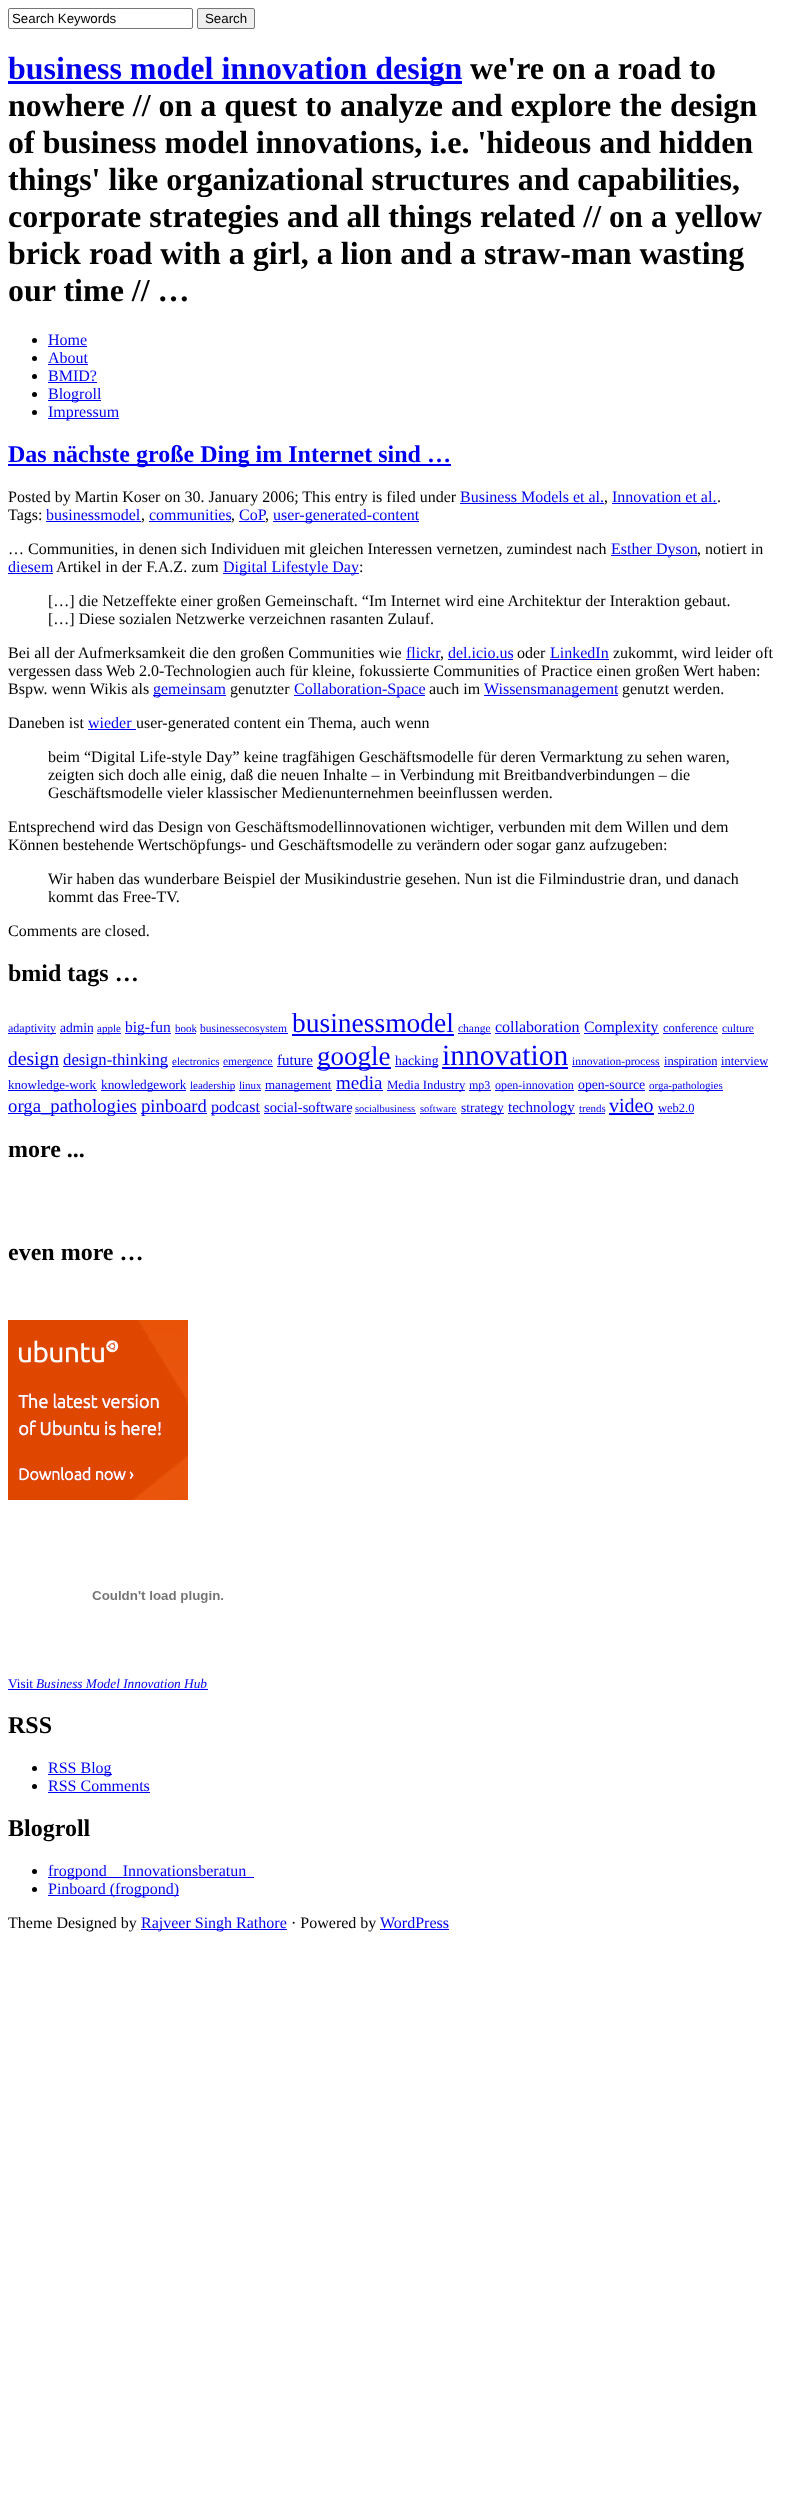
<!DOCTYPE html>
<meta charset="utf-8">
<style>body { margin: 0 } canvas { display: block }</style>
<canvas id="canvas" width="788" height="2503"></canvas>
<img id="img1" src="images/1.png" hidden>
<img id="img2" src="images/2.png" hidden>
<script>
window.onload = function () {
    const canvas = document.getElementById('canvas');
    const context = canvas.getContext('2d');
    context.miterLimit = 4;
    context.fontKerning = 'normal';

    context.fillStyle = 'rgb(255, 255, 255)';
    context.fillRect(0, 0, 788, 2503);
    context.beginPath();
    context.roundRect(8.5, 8.5, 184, 20, 1.5);
    context.strokeStyle = 'rgb(118, 118, 118)';
    context.stroke();
    context.fillStyle = 'rgb(239, 239, 239)';
    context.beginPath();
    context.roundRect(197.5, 8.5, 57, 20, 1.5);
    context.fill();
    context.stroke();
    context.fillStyle = 'rgb(0, 0, 238)';
    context.fillRect(8, 81, 454, 3);
    context.fillStyle = 'rgb(0, 0, 0)';
    context.beginPath();
    context.arc(34.5, 340.5, 2.5, 0, 2 * Math.PI);
    context.fill();
    context.fillStyle = 'rgb(0, 0, 238)';
    context.fillRect(48, 346, 39, 1);
    context.fillStyle = 'rgb(0, 0, 0)';
    context.beginPath();
    context.arc(34.5, 358.5, 2.5, 0, 2 * Math.PI);
    context.fill();
    context.fillStyle = 'rgb(0, 0, 238)';
    context.fillRect(48, 364, 40, 1);
    context.fillStyle = 'rgb(0, 0, 0)';
    context.beginPath();
    context.arc(34.5, 376.5, 2.5, 0, 2 * Math.PI);
    context.fill();
    context.fillStyle = 'rgb(0, 0, 238)';
    context.fillRect(48, 382, 49, 1);
    context.fillStyle = 'rgb(0, 0, 0)';
    context.beginPath();
    context.arc(34.5, 394.5, 2.5, 0, 2 * Math.PI);
    context.fill();
    context.fillStyle = 'rgb(0, 0, 238)';
    context.fillRect(48, 400, 53, 1);
    context.fillStyle = 'rgb(0, 0, 0)';
    context.beginPath();
    context.arc(34.5, 412.5, 2.5, 0, 2 * Math.PI);
    context.fill();
    context.fillStyle = 'rgb(0, 0, 238)';
    context.fillRect(48, 418, 71, 1);
    context.fillRect(8, 464, 443, 2);
    context.fillRect(460, 503, 144, 1);
    context.fillRect(612, 503, 105, 1);
    context.fillRect(46, 521, 95, 1);
    context.fillRect(149, 521, 82, 1);
    context.fillRect(239, 521, 26, 1);
    context.fillRect(273, 521, 146, 1);
    context.fillRect(611, 555, 86, 1);
    context.fillRect(8, 573, 45, 1);
    context.fillRect(223, 573, 136, 1);
    context.fillRect(406, 659, 34, 1);
    context.fillRect(448, 659, 65, 1);
    context.fillRect(550, 659, 59, 1);
    context.fillRect(153, 695, 73, 1);
    context.fillRect(294, 695, 131, 1);
    context.fillRect(484, 695, 134, 1);
    context.fillRect(88, 729, 48, 1);
    context.fillRect(8, 1033, 48, 1);
    context.fillRect(60, 1033, 33, 1);
    context.fillRect(97, 1033, 24, 1);
    context.fillRect(125, 1033, 46, 1);
    context.fillRect(175, 1033, 21, 1);
    context.fillRect(200, 1033, 88, 1);
    context.fillRect(292, 1034, 162, 2);
    context.fillRect(458, 1033, 33, 1);
    context.fillRect(495, 1033, 85, 1);
    context.fillRect(584, 1033, 75, 1);
    context.fillRect(663, 1033, 55, 1);
    context.fillRect(722, 1033, 32, 1);
    context.fillRect(8, 1066, 51, 1);
    context.fillRect(63, 1066, 105, 1);
    context.fillRect(172, 1066, 47, 1);
    context.fillRect(223, 1066, 50, 1);
    context.fillRect(277, 1066, 36, 1);
    context.fillRect(317, 1067, 74, 2);
    context.fillRect(395, 1066, 43, 1);
    context.fillRect(442, 1067, 126, 2);
    context.fillRect(572, 1066, 88, 1);
    context.fillRect(664, 1066, 53, 1);
    context.fillRect(721, 1066, 47, 1);
    context.fillRect(8, 1090, 89, 1);
    context.fillRect(101, 1090, 85, 1);
    context.fillRect(190, 1090, 45, 1);
    context.fillRect(239, 1090, 22, 1);
    context.fillRect(265, 1090, 67, 1);
    context.fillRect(336, 1090, 47, 1);
    context.fillRect(387, 1090, 78, 1);
    context.fillRect(469, 1090, 22, 1);
    context.fillRect(495, 1090, 79, 1);
    context.fillRect(578, 1090, 67, 1);
    context.fillRect(649, 1090, 74, 1);
    context.fillRect(8, 1113, 129, 1);
    context.fillRect(141, 1113, 66, 1);
    context.fillRect(211, 1113, 49, 1);
    context.fillRect(264, 1113, 87, 1);
    context.fillRect(355, 1113, 61, 1);
    context.fillRect(420, 1113, 37, 1);
    context.fillRect(461, 1113, 43, 1);
    context.fillRect(508, 1113, 67, 1);
    context.fillRect(579, 1113, 26, 1);
    context.fillRect(609, 1113, 45, 2);
    context.fillRect(658, 1113, 36, 1);
    context.drawImage(document.getElementById('img1'), 8, 1320, 180, 180);
    context.drawImage(document.getElementById('img2'), 92, 1591, 131, 12);
    context.fillRect(8, 1689, 200, 1);
    context.fillStyle = 'rgb(0, 0, 0)';
    context.beginPath();
    context.arc(34.5, 1768.5, 2.5, 0, 2 * Math.PI);
    context.fill();
    context.fillStyle = 'rgb(0, 0, 238)';
    context.fillRect(48, 1774, 64, 1);
    context.fillStyle = 'rgb(0, 0, 0)';
    context.beginPath();
    context.arc(34.5, 1786.5, 2.5, 0, 2 * Math.PI);
    context.fill();
    context.fillStyle = 'rgb(0, 0, 238)';
    context.fillRect(48, 1792, 102, 1);
    context.fillStyle = 'rgb(0, 0, 0)';
    context.beginPath();
    context.arc(34.5, 1871.5, 2.5, 0, 2 * Math.PI);
    context.fill();
    context.fillStyle = 'rgb(0, 0, 238)';
    context.fillRect(48, 1877, 206, 1);
    context.fillStyle = 'rgb(0, 0, 0)';
    context.beginPath();
    context.arc(34.5, 1889.5, 2.5, 0, 2 * Math.PI);
    context.fill();
    context.fillStyle = 'rgb(0, 0, 238)';
    context.fillRect(48, 1895, 131, 1);
    context.fillRect(141, 1929, 146, 1);
    context.fillRect(380, 1929, 69, 1);
    context.font = '13.3px Liberation Sans';
    context.fillStyle = 'rgb(0, 0, 0)';
    context.fillText('Search Keywords', 12, 23);
    context.fillText('Search', 205, 23);
    context.font = 'bold 32px Liberation Serif';
    context.fillStyle = 'rgb(0, 0, 238)';
    context.fillText('business model innovation design', 8, 79);
    context.fillStyle = 'rgb(0, 0, 0)';
    context.fillText('we\'re on a road to', 470, 79);
    context.fillText('nowhere // on a quest to analyze and explore the design', 8, 116);
    context.fillText('of business model innovations, i.e. \'hideous and hidden', 8, 153);
    context.fillText('things\' like organizational structures and capabilities,', 8, 190);
    context.fillText('corporate strategies and all things related // on a yellow', 8, 227);
    context.fillText('brick road with a girl, a lion and a straw-man wasting', 8, 264);
    context.fillText('our time // …', 8, 301);
    context.font = '16px Liberation Serif';
    context.fillStyle = 'rgb(0, 0, 238)';
    context.fillText('Home', 48, 345);
    context.fillText('About', 48, 363);
    context.fillText('BMID?', 48, 381);
    context.fillText('Blogroll', 48, 399);
    context.fillText('Impressum', 48, 417);
    context.font = 'bold 24px Liberation Serif';
    context.fillText('Das nächste große Ding im Internet sind …', 8, 462);
    context.font = '16px Liberation Serif';
    context.fillStyle = 'rgb(0, 0, 0)';
    context.fillText('Posted by Martin Koser on 30. January 2006; This entry is filed under', 8, 502);
    context.fillStyle = 'rgb(0, 0, 238)';
    context.fillText('Business Models et al.', 460, 502);
    context.fillStyle = 'rgb(0, 0, 0)';
    context.fillText(',', 604, 502);
    context.fillStyle = 'rgb(0, 0, 238)';
    context.fillText('Innovation et al.', 612, 502);
    context.fillStyle = 'rgb(0, 0, 0)';
    context.fillText('.', 717, 502);
    context.fillText('Tags:', 8, 520);
    context.fillStyle = 'rgb(0, 0, 238)';
    context.fillText('businessmodel', 46, 520);
    context.fillStyle = 'rgb(0, 0, 0)';
    context.fillText(',', 141, 520);
    context.fillStyle = 'rgb(0, 0, 238)';
    context.fillText('communities', 149, 520);
    context.fillStyle = 'rgb(0, 0, 0)';
    context.fillText(',', 231, 520);
    context.fillStyle = 'rgb(0, 0, 238)';
    context.fillText('CoP', 239, 520);
    context.fillText('user-generated-content', 273, 520);
    context.fillStyle = 'rgb(0, 0, 0)';
    context.fillText(',', 265, 520);
    context.fillText('… Communities, in denen sich Individuen mit gleichen Interessen vernetzen, zumindest nach', 8, 554);
    context.fillStyle = 'rgb(0, 0, 238)';
    context.fillText('Esther Dyson', 611, 554);
    context.fillStyle = 'rgb(0, 0, 0)';
    context.fillText(', notiert in', 697, 554);
    context.fillStyle = 'rgb(0, 0, 238)';
    context.fillText('diesem', 8, 572);
    context.fillStyle = 'rgb(0, 0, 0)';
    context.fillText('Artikel in der F.A.Z. zum', 56, 572);
    context.fillStyle = 'rgb(0, 0, 238)';
    context.fillText('Digital Lifestyle Day', 223, 572);
    context.fillStyle = 'rgb(0, 0, 0)';
    context.fillText(':', 359, 572);
    context.fillText('[…] die Netzeffekte einer großen Gemeinschaft. “Im Internet wird eine Architektur der Interaktion gebaut.', 48, 606);
    context.fillText('[…] Diese sozialen Netzwerke verzeichnen rasanten Zulauf.', 48, 624);
    context.fillText('Bei all der Aufmerksamkeit die den großen Communities wie', 8, 658);
    context.fillStyle = 'rgb(0, 0, 238)';
    context.fillText('flickr', 406, 658);
    context.fillStyle = 'rgb(0, 0, 0)';
    context.fillText(',', 440, 658);
    context.fillStyle = 'rgb(0, 0, 238)';
    context.fillText('del.icio.us', 448, 658);
    context.fillStyle = 'rgb(0, 0, 0)';
    context.fillText('oder', 517, 658);
    context.fillStyle = 'rgb(0, 0, 238)';
    context.fillText('LinkedIn', 550, 658);
    context.fillStyle = 'rgb(0, 0, 0)';
    context.fillText('zukommt, wird leider oft', 613, 658);
    context.fillText('vergessen dass Web 2.0-Technologien auch für kleine, fokussierte Communities of Practice einen großen Wert haben:', 8, 676);
    context.fillText('Bspw. wenn Wikis als', 8, 694);
    context.fillStyle = 'rgb(0, 0, 238)';
    context.fillText('gemeinsam', 153, 694);
    context.fillStyle = 'rgb(0, 0, 0)';
    context.fillText('genutzter', 230, 694);
    context.fillStyle = 'rgb(0, 0, 238)';
    context.fillText('Collaboration-Space', 294, 694);
    context.fillStyle = 'rgb(0, 0, 0)';
    context.fillText('auch im', 429, 694);
    context.fillStyle = 'rgb(0, 0, 238)';
    context.fillText('Wissensmanagement', 484, 694);
    context.fillStyle = 'rgb(0, 0, 0)';
    context.fillText('genutzt werden.', 622, 694);
    context.fillText('Daneben ist', 8, 728);
    context.fillStyle = 'rgb(0, 0, 238)';
    context.fillText('wieder', 88, 728);
    context.fillStyle = 'rgb(0, 0, 0)';
    context.fillText('user-generated content ein Thema, auch wenn', 136, 728);
    context.fillText('beim “Digital Life-style Day” keine tragfähigen Geschäftsmodelle für deren Vermarktung zu sehen waren,', 48, 762);
    context.fillText('zeigten sich doch alle einig, daß die neuen Inhalte – in Verbindung mit Breitbandverbindungen – die', 48, 780);
    context.fillText('Geschäftsmodelle vieler klassischer Medienunternehmen beeinflussen werden.', 48, 798);
    context.fillText('Entsprechend wird das Design von Geschäftsmodellinnovationen wichtiger, verbunden mit dem Willen und dem', 8, 832);
    context.fillText('Können bestehende Wertschöpfungs- und Geschäftsmodelle zu verändern oder sogar ganz aufzugeben:', 8, 850);
    context.fillText('Wir haben das wunderbare Beispiel der Musikindustrie gesehen. Nun ist die Filmindustrie dran, und danach', 48, 884);
    context.fillText('kommt das Free-TV.', 48, 902);
    context.fillText('Comments are closed.', 8, 936);
    context.font = 'bold 24px Liberation Serif';
    context.fillText('bmid tags …', 8, 981);
    context.font = '12px Liberation Serif';
    context.fillStyle = 'rgb(0, 0, 238)';
    context.fillText('adaptivity', 8, 1032);
    context.font = '13.5px Liberation Serif';
    context.fillText('admin', 60, 1032);
    context.font = '11px Liberation Serif';
    context.fillText('apple', 97, 1032);
    context.font = '15.5px Liberation Serif';
    context.fillText('big-fun', 125, 1032);
    context.font = '11px Liberation Serif';
    context.fillText('book', 175, 1032);
    context.font = '11.5px Liberation Serif';
    context.fillText('businessecosystem', 200, 1032);
    context.font = '27.5px Liberation Serif';
    context.fillText('businessmodel', 292, 1032);
    context.font = '11.5px Liberation Serif';
    context.fillText('change', 458, 1032);
    context.font = '16px Liberation Serif';
    context.fillText('collaboration', 495, 1032);
    context.font = '15.75px Liberation Serif';
    context.fillText('Complexity', 584, 1032);
    context.font = '12.5px Liberation Serif';
    context.fillText('conference', 663, 1032);
    context.font = '11.5px Liberation Serif';
    context.fillText('culture', 722, 1032);
    context.font = '19.5px Liberation Serif';
    context.fillText('design', 8, 1065);
    context.font = '16.75px Liberation Serif';
    context.fillText('design-thinking', 63, 1065);
    context.font = '11px Liberation Serif';
    context.fillText('electronics', 172, 1065);
    context.font = '11.5px Liberation Serif';
    context.fillText('emergence', 223, 1065);
    context.font = '15px Liberation Serif';
    context.fillText('future', 277, 1065);
    context.font = '27px Liberation Serif';
    context.fillText('google', 317, 1065);
    context.font = '13.75px Liberation Serif';
    context.fillText('hacking', 395, 1065);
    context.font = '29.5px Liberation Serif';
    context.fillText('innovation', 442, 1065);
    context.font = '11.5px Liberation Serif';
    context.fillText('innovation-process', 572, 1065);
    context.font = '12.5px Liberation Serif';
    context.fillText('inspiration', 664, 1065);
    context.fillText('interview', 721, 1065);
    context.font = '13px Liberation Serif';
    context.fillText('knowledge-work', 8, 1089);
    context.font = '13.25px Liberation Serif';
    context.fillText('knowledgework', 101, 1089);
    context.font = '11px Liberation Serif';
    context.fillText('leadership', 190, 1089);
    context.fillText('linux', 239, 1089);
    context.font = '13px Liberation Serif';
    context.fillText('management', 265, 1089);
    context.font = '19px Liberation Serif';
    context.fillText('media', 336, 1089);
    context.font = '12.75px Liberation Serif';
    context.fillText('Media Industry', 387, 1089);
    context.font = '12px Liberation Serif';
    context.fillText('mp3', 469, 1089);
    context.fillText('open-innovation', 495, 1089);
    context.font = '13.75px Liberation Serif';
    context.fillText('open-source', 578, 1089);
    context.font = '11px Liberation Serif';
    context.fillText('orga-pathologies', 649, 1089);
    context.font = '18.75px Liberation Serif';
    context.fillText('orga_pathologies', 8, 1112);
    context.font = '18.5px Liberation Serif';
    context.fillText('pinboard', 141, 1112);
    context.font = '16px Liberation Serif';
    context.fillText('podcast', 211, 1112);
    context.font = '14.5px Liberation Serif';
    context.fillText('social-software', 264, 1112);
    context.font = '10.5px Liberation Serif';
    context.fillText('socialbusiness', 355, 1112);
    context.fillText('software', 420, 1112);
    context.font = '13.5px Liberation Serif';
    context.fillText('strategy', 461, 1112);
    context.font = '15px Liberation Serif';
    context.fillText('technology', 508, 1112);
    context.font = '11px Liberation Serif';
    context.fillText('trends', 579, 1112);
    context.font = '20px Liberation Serif';
    context.fillText('video', 609, 1112);
    context.font = '12.5px Liberation Serif';
    context.fillText('web2.0', 658, 1112);
    context.font = 'bold 24px Liberation Serif';
    context.fillStyle = 'rgb(0, 0, 0)';
    context.fillText('more ...', 8, 1157);
    context.fillText('even more …', 8, 1260);
    context.font = '13.3px Liberation Serif';
    context.fillStyle = 'rgb(0, 0, 238)';
    context.fillText('Visit', 8, 1688);
    context.font = 'italic 13.3px Liberation Serif';
    context.fillText('Business Model Innovation Hub', 36, 1688);
    context.font = 'bold 24px Liberation Serif';
    context.fillStyle = 'rgb(0, 0, 0)';
    context.fillText('RSS', 8, 1733);
    context.font = '16px Liberation Serif';
    context.fillStyle = 'rgb(0, 0, 238)';
    context.fillText('RSS Blog', 48, 1773);
    context.fillText('RSS Comments', 48, 1791);
    context.font = 'bold 24px Liberation Serif';
    context.fillStyle = 'rgb(0, 0, 0)';
    context.fillText('Blogroll', 8, 1836);
    context.font = '16px Liberation Serif';
    context.fillStyle = 'rgb(0, 0, 238)';
    context.fillText('frogpond _ Innovationsberatun', 48, 1876);
    context.fillText('Pinboard (frogpond)', 48, 1894);
    context.fillStyle = 'rgb(0, 0, 0)';
    context.fillText('Theme Designed by', 8, 1928);
    context.fillStyle = 'rgb(0, 0, 238)';
    context.fillText('Rajveer Singh Rathore', 141, 1928);
    context.fillStyle = 'rgb(0, 0, 0)';
    context.fillText('· Powered by', 291, 1928);
    context.fillStyle = 'rgb(0, 0, 238)';
    context.fillText('WordPress', 380, 1928);
};
</script>
